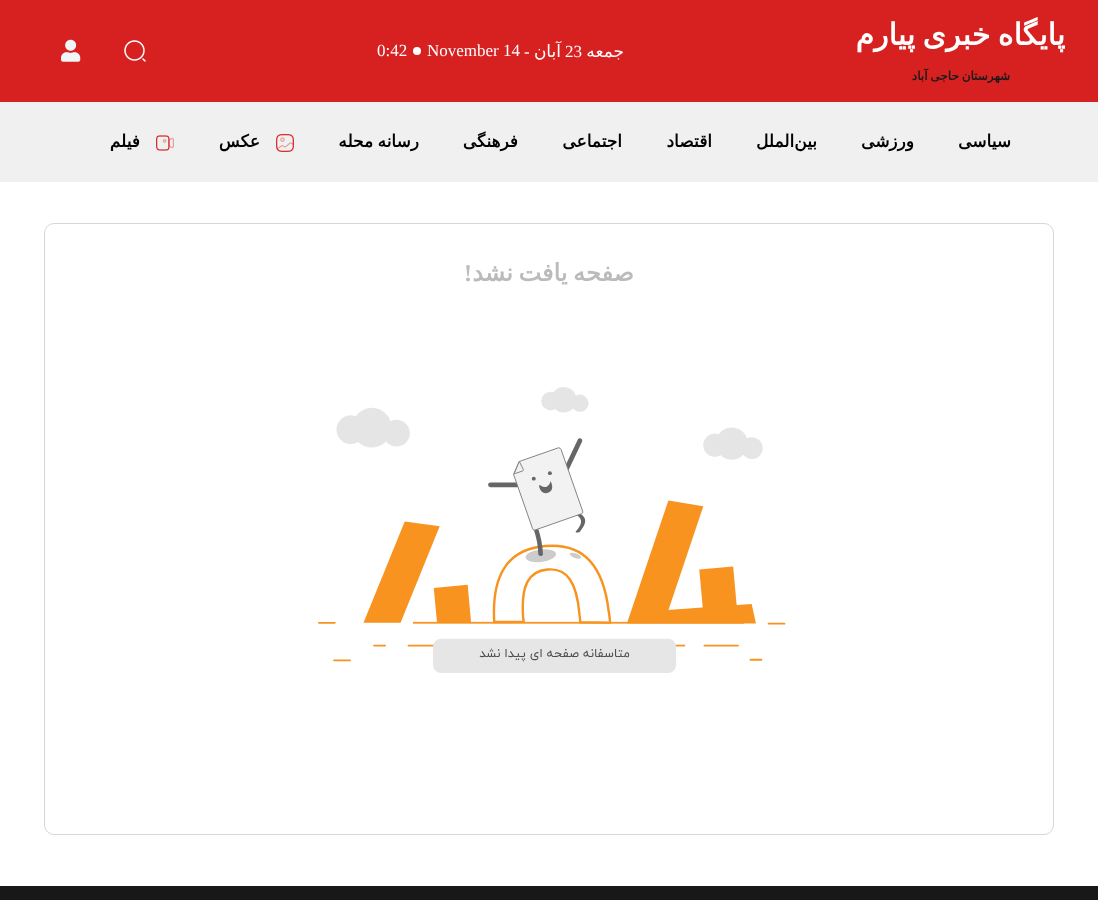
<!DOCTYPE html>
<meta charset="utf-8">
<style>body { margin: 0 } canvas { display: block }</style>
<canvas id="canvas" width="1098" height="900"></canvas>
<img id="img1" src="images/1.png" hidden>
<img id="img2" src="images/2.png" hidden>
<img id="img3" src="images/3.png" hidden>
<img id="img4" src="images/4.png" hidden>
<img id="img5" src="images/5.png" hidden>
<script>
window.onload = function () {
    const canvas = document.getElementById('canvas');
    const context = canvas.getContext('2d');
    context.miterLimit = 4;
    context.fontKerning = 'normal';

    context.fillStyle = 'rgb(255, 255, 255)';
    context.fillRect(0, 0, 1098, 900);
    context.fillStyle = 'rgb(215, 33, 33)';
    context.fillRect(0, 0, 1098, 102);
    context.fillStyle = 'rgb(255, 255, 255)';
    context.beginPath();
    context.arc(417, 51, 4, 0, 2 * Math.PI);
    context.fill();
    context.drawImage(document.getElementById('img1'), 124, 40, 22, 22);
    context.drawImage(document.getElementById('img2'), 61, 39, 20, 23);
    context.fillStyle = 'rgb(240, 240, 240)';
    context.fillRect(0, 102, 1098, 80);
    context.drawImage(document.getElementById('img3'), 276, 134, 18, 18);
    context.drawImage(document.getElementById('img4'), 156, 135, 18, 16);
    context.beginPath();
    context.roundRect(44.5, 223.5, 1009, 611, 9.5);
    context.strokeStyle = 'rgb(212, 216, 221)';
    context.stroke();
    context.drawImage(document.getElementById('img5'), 318, 387, 468, 286);
    context.fillStyle = 'rgb(24, 24, 24)';
    context.fillRect(0, 886, 1098, 14);
    context.wordSpacing = '-2px';
    context.direction = 'rtl';
    context.font = 'bold 30px DejaVu Sans';
    context.fillStyle = 'rgb(255, 255, 255)';
    context.fillText('پایگاه خبری پیارم', 1065, 45);
    context.wordSpacing = '-1px';
    context.font = 'bold 12px DejaVu Sans';
    context.fillStyle = 'rgb(26, 25, 25)';
    context.fillText('شهرستان حاجی آباد', 1010, 80);
    context.wordSpacing = '0px';
    context.font = '17px DejaVu Sans';
    context.fillStyle = 'rgb(255, 255, 255)';
    context.fillText('جمعه', 624, 57);
    context.direction = 'ltr';
    context.font = '17px Liberation Serif';
    context.fillText('23', 565, 57);
    context.direction = 'rtl';
    context.font = '17px DejaVu Sans';
    context.fillText('آبان', 561, 57);
    context.direction = 'ltr';
    context.font = '17px Liberation Serif';
    context.fillText('-', 524, 57);
    context.fillText('November 14', 427, 56);
    context.fillText('0:42', 377, 56);
    context.direction = 'rtl';
    context.font = 'bold 17px DejaVu Sans';
    context.fillStyle = 'rgb(0, 0, 0)';
    context.fillText('سیاسی', 1011, 147);
    context.fillText('ورزشی', 914, 147);
    context.fillText('بین‌الملل', 817, 147);
    context.fillText('اقتصاد', 712, 147);
    context.fillText('اجتماعی', 622, 147);
    context.fillText('فرهنگی', 518, 147);
    context.wordSpacing = '-1px';
    context.fillText('رسانه محله', 419, 147);
    context.wordSpacing = '0px';
    context.fillText('عکس', 260, 147);
    context.fillText('فیلم', 140, 147);
    context.wordSpacing = '-2px';
    context.font = 'bold 24px DejaVu Sans';
    context.fillStyle = 'rgb(187, 187, 187)';
    context.fillText('صفحه یافت نشد', 634, 281);
    context.wordSpacing = '0px';
    context.font = 'bold 24px Liberation Serif';
    context.fillText('!', 472, 281);
};
</script>
